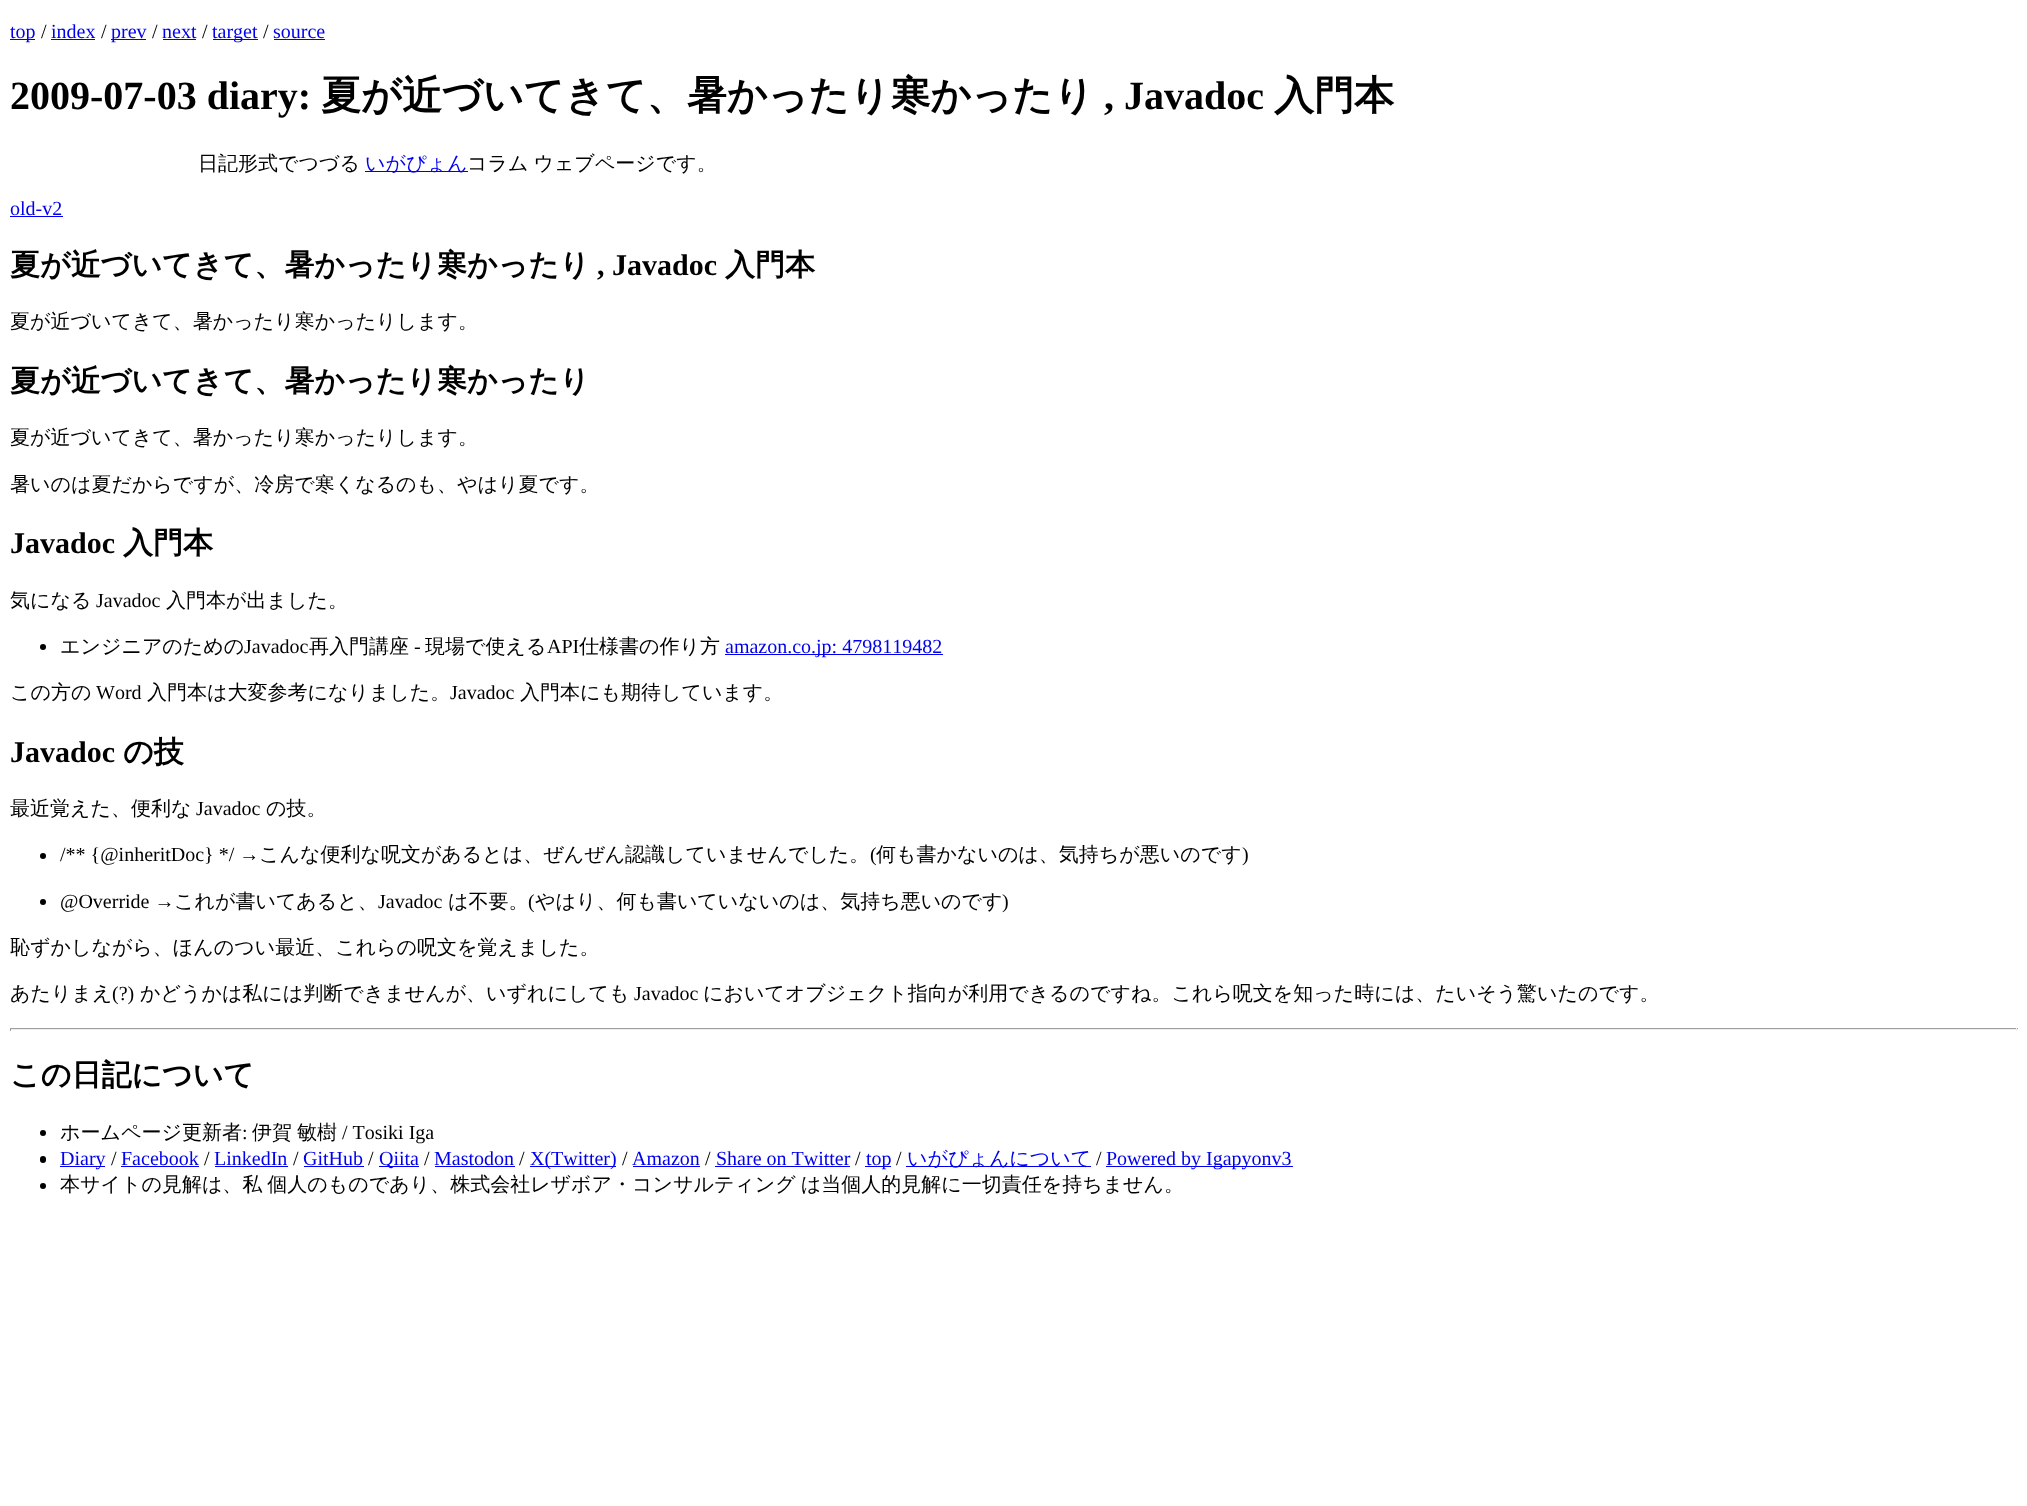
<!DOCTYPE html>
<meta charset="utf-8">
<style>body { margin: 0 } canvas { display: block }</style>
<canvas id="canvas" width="2027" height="1506"></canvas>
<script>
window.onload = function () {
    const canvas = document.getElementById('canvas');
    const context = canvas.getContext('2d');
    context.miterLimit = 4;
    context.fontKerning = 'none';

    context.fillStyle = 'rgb(255, 255, 255)';
    context.fillRect(0, 0, 2027, 1506);
    context.fillStyle = 'rgb(0, 0, 238)';
    context.fillRect(10, 39, 25, 1);
    context.fillRect(51, 39, 44, 1);
    context.fillRect(111, 39, 35, 1);
    context.fillRect(163, 39, 33, 1);
    context.fillRect(213, 39, 45, 1);
    context.fillRect(274, 39, 51, 1);
    context.fillRect(365, 171, 103, 1);
    context.fillRect(10, 216, 53, 1);
    context.fillStyle = 'rgb(0, 0, 0)';
    context.beginPath();
    context.arc(43, 647, 3, 0, 2 * Math.PI);
    context.fill();
    context.fillStyle = 'rgb(0, 0, 238)';
    context.fillRect(725, 654, 218, 1);
    context.fillStyle = 'rgb(0, 0, 0)';
    context.beginPath();
    context.arc(43, 856, 3, 0, 2 * Math.PI);
    context.fill();
    context.beginPath();
    context.arc(43, 902, 3, 0, 2 * Math.PI);
    context.fill();
    context.fillStyle = 'rgb(159, 159, 159)';
    context.fillRect(10, 1028, 2008, 1);
    context.fillStyle = 'rgb(238, 238, 238)';
    context.fillRect(2016, 1028, 1, 3);
    context.fillRect(10, 1029, 2008, 1);
    context.fillStyle = 'rgb(159, 159, 159)';
    context.fillRect(10, 1028, 1, 3);
    context.fillStyle = 'rgb(0, 0, 0)';
    context.beginPath();
    context.arc(43, 1133, 3, 0, 2 * Math.PI);
    context.fill();
    context.beginPath();
    context.roundRect(40, 1156, 6, 7, 3);
    context.fill();
    context.fillStyle = 'rgb(0, 0, 238)';
    context.fillRect(60, 1166, 45, 1);
    context.fillRect(121, 1166, 78, 1);
    context.fillRect(215, 1166, 73, 1);
    context.fillRect(304, 1166, 60, 1);
    context.fillRect(379, 1166, 40, 1);
    context.fillRect(435, 1166, 80, 1);
    context.fillRect(530, 1166, 86, 1);
    context.fillRect(633, 1166, 67, 1);
    context.fillRect(715, 1166, 135, 1);
    context.fillRect(865, 1166, 26, 1);
    context.fillRect(906, 1166, 185, 1);
    context.fillRect(1106, 1166, 187, 1);
    context.fillStyle = 'rgb(0, 0, 0)';
    context.beginPath();
    context.arc(43, 1186, 3, 0, 2 * Math.PI);
    context.fill();
    context.font = '20px Liberation Serif';
    context.fillStyle = 'rgb(0, 0, 238)';
    context.fillText('top', 10, 38);
    context.fillStyle = 'rgb(0, 0, 0)';
    context.fillText('/', 41, 38);
    context.fillStyle = 'rgb(0, 0, 238)';
    context.fillText('index', 51, 38);
    context.fillStyle = 'rgb(0, 0, 0)';
    context.fillText('/', 101, 38);
    context.fillStyle = 'rgb(0, 0, 238)';
    context.fillText('prev', 111, 38);
    context.fillStyle = 'rgb(0, 0, 0)';
    context.fillText('/', 152, 38);
    context.fillStyle = 'rgb(0, 0, 238)';
    context.fillText('next', 162, 38);
    context.fillStyle = 'rgb(0, 0, 0)';
    context.fillText('/', 202, 38);
    context.fillStyle = 'rgb(0, 0, 238)';
    context.fillText('target', 212, 38);
    context.fillStyle = 'rgb(0, 0, 0)';
    context.fillText('/', 263, 38);
    context.fillStyle = 'rgb(0, 0, 238)';
    context.fillText('source', 273, 38);
    context.font = 'bold 40px Liberation Serif';
    context.fillStyle = 'rgb(0, 0, 0)';
    context.fillText('2009-07-03 diary:', 10, 109);
    context.font = 'bold 40px WenQuanYi Zen Hei';
    context.fillText('夏が近づいてきて、暑かったり寒かったり', 321, 109);
    context.font = 'bold 40px Liberation Serif';
    context.fillText(', Javadoc', 1104, 109);
    context.font = 'bold 40px WenQuanYi Zen Hei';
    context.fillText('入門本', 1274, 109);
    context.font = '500 20px WenQuanYi Zen Hei';
    context.fillText('日記形式でつづる', 198, 170);
    context.fillStyle = 'rgb(0, 0, 238)';
    context.fillText('いがぴょん', 365, 170);
    context.wordSpacing = '-1px';
    context.fillStyle = 'rgb(0, 0, 0)';
    context.fillText('コラム ウェブページです。', 467, 170);
    context.wordSpacing = '0px';
    context.font = '20px Liberation Serif';
    context.fillStyle = 'rgb(0, 0, 238)';
    context.fillText('old-v2', 10, 215);
    context.font = 'bold 30px WenQuanYi Zen Hei';
    context.fillStyle = 'rgb(0, 0, 0)';
    context.fillText('夏が近づいてきて、暑かったり寒かったり', 10, 275);
    context.font = 'bold 30px Liberation Serif';
    context.fillText(', Javadoc', 597, 275);
    context.font = 'bold 30px WenQuanYi Zen Hei';
    context.fillText('入門本', 725, 275);
    context.font = '500 20px WenQuanYi Zen Hei';
    context.fillText('夏が近づいてきて、暑かったり寒かったりします。', 10, 328);
    context.font = 'bold 30px WenQuanYi Zen Hei';
    context.fillText('夏が近づいてきて、暑かったり寒かったり', 10, 391);
    context.font = '500 20px WenQuanYi Zen Hei';
    context.fillText('夏が近づいてきて、暑かったり寒かったりします。', 10, 444);
    context.fillText('暑いのは夏だからですが、冷房で寒くなるのも、やはり夏です。', 10, 491);
    context.font = 'bold 30px Liberation Serif';
    context.fillText('Javadoc', 10, 553);
    context.font = 'bold 30px WenQuanYi Zen Hei';
    context.fillText('入門本', 123, 553);
    context.font = '500 20px WenQuanYi Zen Hei';
    context.fillText('気になる', 10, 607);
    context.font = '20px Liberation Serif';
    context.fillText('Javadoc', 96, 607);
    context.font = '500 20px WenQuanYi Zen Hei';
    context.fillText('入門本が出ました。', 166, 607);
    context.fillText('エンジニアのための', 60, 653);
    context.font = '20px Liberation Serif';
    context.fillText('Javadoc', 244, 653);
    context.font = '500 20px WenQuanYi Zen Hei';
    context.fillText('再入門講座', 309, 653);
    context.font = '20px Liberation Serif';
    context.fillText('-', 414, 653);
    context.font = '500 20px WenQuanYi Zen Hei';
    context.fillText('現場で使える', 425, 653);
    context.font = '20px Liberation Serif';
    context.fillText('API', 547, 653);
    context.font = '500 20px WenQuanYi Zen Hei';
    context.fillText('仕様書の作り方', 579, 653);
    context.font = '20px Liberation Serif';
    context.fillStyle = 'rgb(0, 0, 238)';
    context.fillText('amazon.co.jp: 4798119482', 725, 653);
    context.font = '500 20px WenQuanYi Zen Hei';
    context.fillStyle = 'rgb(0, 0, 0)';
    context.fillText('この方の', 10, 699);
    context.font = '20px Liberation Serif';
    context.fillText('Word', 96, 699);
    context.font = '500 20px WenQuanYi Zen Hei';
    context.fillText('入門本は大変参考になりました。', 147, 699);
    context.font = '20px Liberation Serif';
    context.fillText('Javadoc', 450, 699);
    context.font = '500 20px WenQuanYi Zen Hei';
    context.fillText('入門本にも期待しています。', 520, 699);
    context.font = 'bold 30px Liberation Serif';
    context.fillText('Javadoc', 10, 762);
    context.font = 'bold 30px WenQuanYi Zen Hei';
    context.fillText('の技', 123, 762);
    context.font = '500 20px WenQuanYi Zen Hei';
    context.fillText('最近覚えた、便利な', 10, 815);
    context.font = '20px Liberation Serif';
    context.fillText('Javadoc', 196, 815);
    context.font = '500 20px WenQuanYi Zen Hei';
    context.fillText('の技。', 266, 815);
    context.font = '20px Liberation Serif';
    context.fillText('/** {@inheritDoc} */ →', 60, 861);
    context.font = '500 20px WenQuanYi Zen Hei';
    context.fillText('こんな便利な呪文があるとは、ぜんぜん認識していませんでした。', 259, 861);
    context.font = '20px Liberation Serif';
    context.fillText('(', 870, 861);
    context.font = '500 20px WenQuanYi Zen Hei';
    context.fillText('何も書かないのは、気持ちが悪いのです', 876, 861);
    context.font = '20px Liberation Serif';
    context.fillText(')', 1242, 861);
    context.fillText('@Override →', 60, 908);
    context.font = '500 20px WenQuanYi Zen Hei';
    context.fillText('これが書いてあると、', 174, 908);
    context.font = '20px Liberation Serif';
    context.fillText('Javadoc', 378, 908);
    context.font = '500 20px WenQuanYi Zen Hei';
    context.fillText('は不要。', 448, 908);
    context.font = '20px Liberation Serif';
    context.fillText('(', 528, 908);
    context.font = '500 20px WenQuanYi Zen Hei';
    context.fillText('やはり、何も書いていないのは、気持ち悪いのです', 535, 908);
    context.font = '20px Liberation Serif';
    context.fillText(')', 1002, 908);
    context.font = '500 20px WenQuanYi Zen Hei';
    context.fillText('恥ずかしながら、ほんのつい最近、これらの呪文を覚えました。', 10, 954);
    context.fillText('あたりまえ', 10, 1000);
    context.font = '20px Liberation Serif';
    context.fillText('(?)', 112, 1000);
    context.font = '500 20px WenQuanYi Zen Hei';
    context.fillText('かどうかは私には判断できませんが、いずれにしても', 140, 1000);
    context.font = '20px Liberation Serif';
    context.fillText('Javadoc', 634, 1000);
    context.font = '500 20px WenQuanYi Zen Hei';
    context.fillText('においてオブジェクト指向が利用できるのですね。これら呪文を知った時には、たいそう驚いたのです。', 703, 1000);
    context.font = 'bold 30px WenQuanYi Zen Hei';
    context.fillText('この日記について', 10, 1085);
    context.font = '500 20px WenQuanYi Zen Hei';
    context.fillText('ホームページ更新者', 60, 1139);
    context.font = '20px Liberation Serif';
    context.fillText(':', 242, 1139);
    context.font = '500 20px WenQuanYi Zen Hei';
    context.fillText('伊賀', 252, 1139);
    context.fillText('敏樹', 297, 1139);
    context.font = '20px Liberation Serif';
    context.fillText('/ Tosiki Iga', 342, 1139);
    context.fillStyle = 'rgb(0, 0, 238)';
    context.fillText('Diary', 60, 1165);
    context.fillStyle = 'rgb(0, 0, 0)';
    context.fillText('/', 111, 1165);
    context.fillStyle = 'rgb(0, 0, 238)';
    context.fillText('Facebook', 121, 1165);
    context.fillStyle = 'rgb(0, 0, 0)';
    context.fillText('/', 204, 1165);
    context.fillStyle = 'rgb(0, 0, 238)';
    context.fillText('LinkedIn', 214, 1165);
    context.fillStyle = 'rgb(0, 0, 0)';
    context.fillText('/', 293, 1165);
    context.fillStyle = 'rgb(0, 0, 238)';
    context.fillText('GitHub', 303, 1165);
    context.fillStyle = 'rgb(0, 0, 0)';
    context.fillText('/', 368, 1165);
    context.fillStyle = 'rgb(0, 0, 238)';
    context.fillText('Qiita', 379, 1165);
    context.fillStyle = 'rgb(0, 0, 0)';
    context.fillText('/', 424, 1165);
    context.fillStyle = 'rgb(0, 0, 238)';
    context.fillText('Mastodon', 434, 1165);
    context.fillStyle = 'rgb(0, 0, 0)';
    context.fillText('/', 519, 1165);
    context.fillStyle = 'rgb(0, 0, 238)';
    context.fillText('X(Twitter)', 530, 1165);
    context.fillStyle = 'rgb(0, 0, 0)';
    context.fillText('/', 622, 1165);
    context.fillStyle = 'rgb(0, 0, 238)';
    context.fillText('Amazon', 632, 1165);
    context.fillStyle = 'rgb(0, 0, 0)';
    context.fillText('/', 705, 1165);
    context.fillStyle = 'rgb(0, 0, 238)';
    context.fillText('Share on Twitter', 716, 1165);
    context.fillStyle = 'rgb(0, 0, 0)';
    context.fillText('/', 855, 1165);
    context.fillStyle = 'rgb(0, 0, 238)';
    context.fillText('top', 866, 1165);
    context.fillStyle = 'rgb(0, 0, 0)';
    context.fillText('/', 896, 1165);
    context.font = '500 20px WenQuanYi Zen Hei';
    context.fillStyle = 'rgb(0, 0, 238)';
    context.fillText('いがぴょんについて', 907, 1165);
    context.font = '20px Liberation Serif';
    context.fillStyle = 'rgb(0, 0, 0)';
    context.fillText('/', 1096, 1165);
    context.fillStyle = 'rgb(0, 0, 238)';
    context.fillText('Powered by Igapyonv3', 1106, 1165);
    context.wordSpacing = '-1px';
    context.font = '500 20px WenQuanYi Zen Hei';
    context.fillStyle = 'rgb(0, 0, 0)';
    context.fillText('本サイトの見解は、私 個人のものであり、株式会社レザボア・コンサルティング は当個人的見解に一切責任を持ちません。', 60, 1191);
};
</script>
